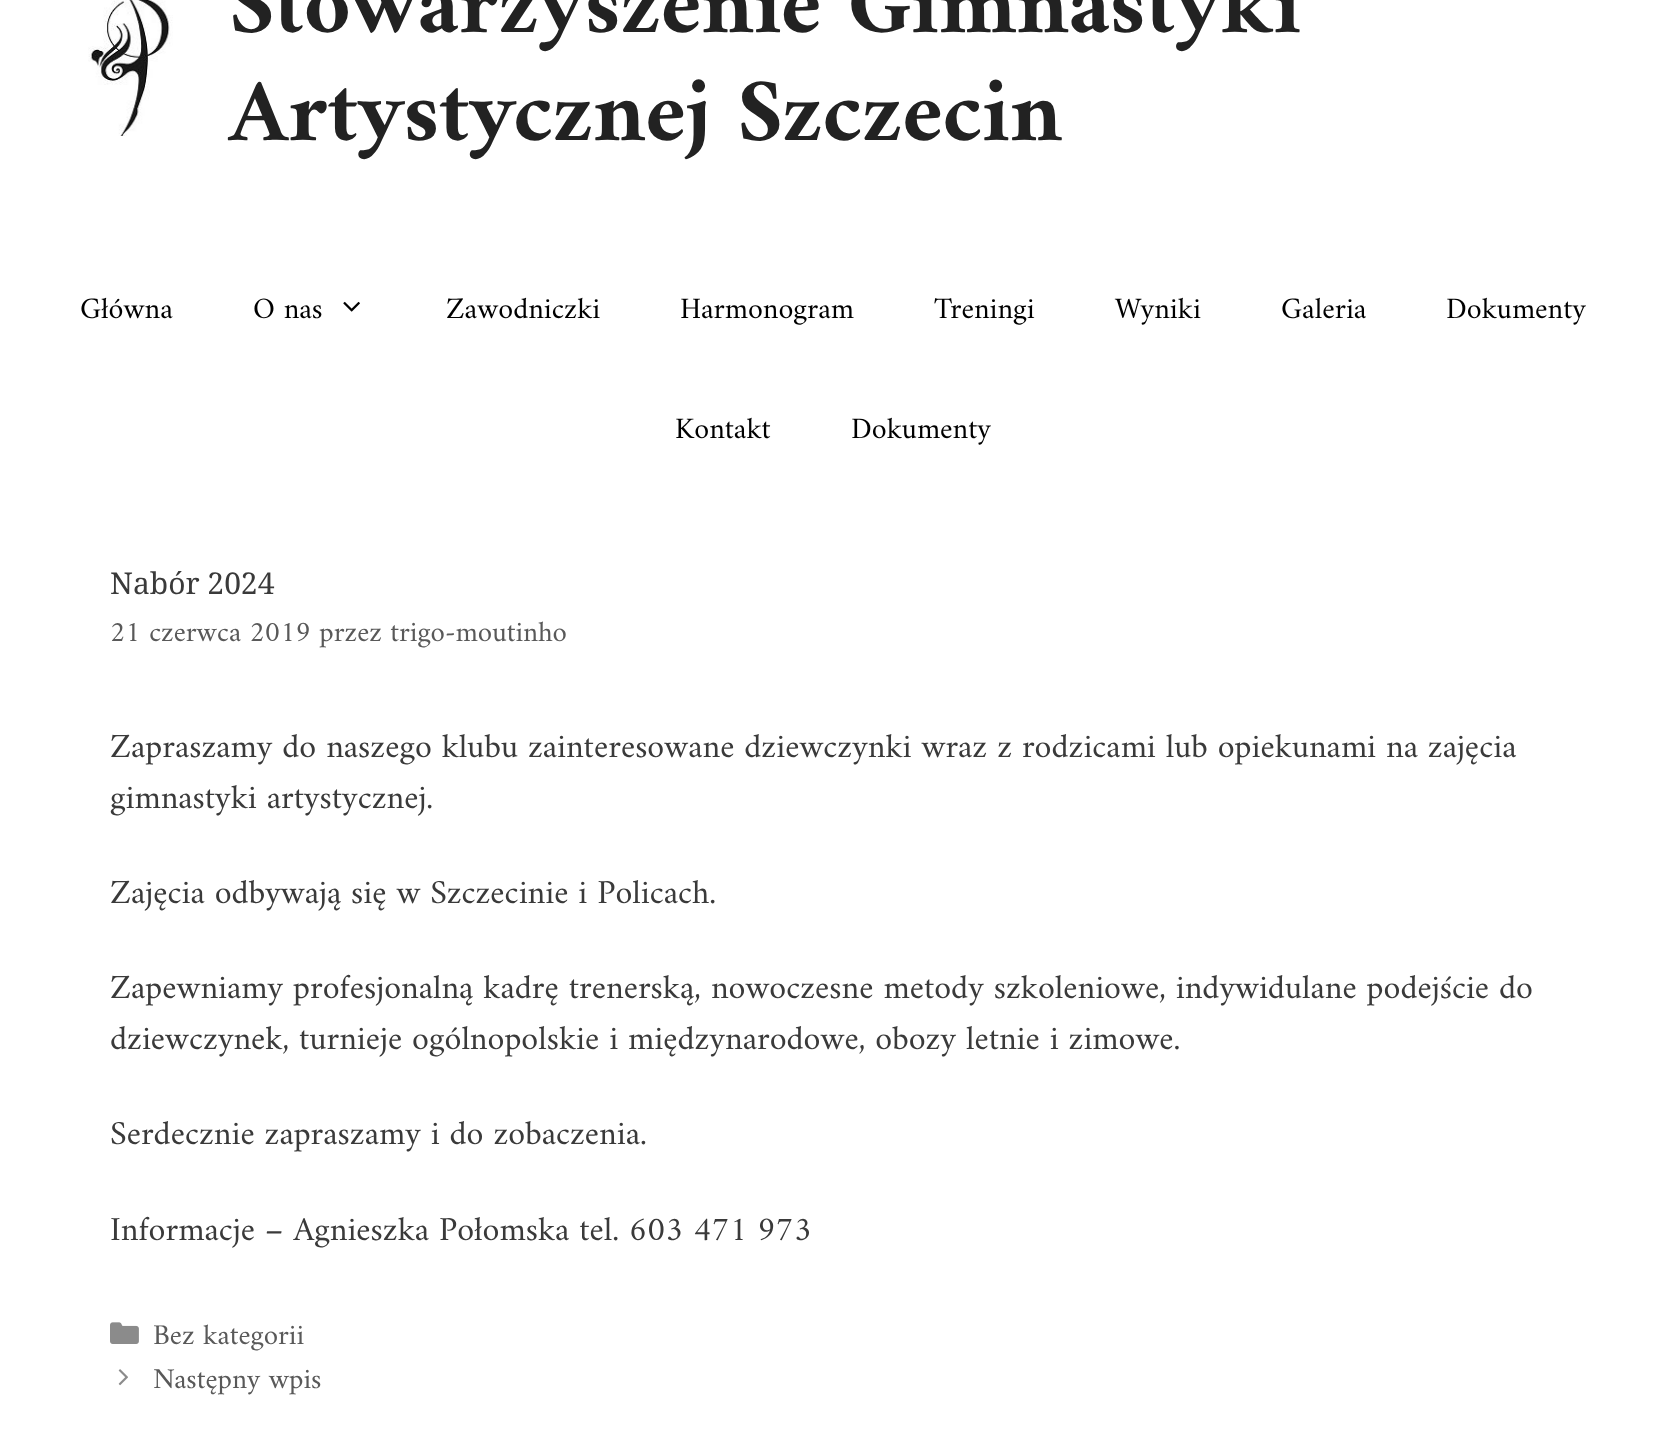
<!DOCTYPE html>
<meta charset="utf-8">
<style>body { margin: 0 } canvas { display: block }</style>
<canvas id="canvas" width="1665" height="1438"></canvas>
<img id="img1" src="images/1.png" hidden>
<img id="img2" src="images/2.png" hidden>
<img id="img3" src="images/3.png" hidden>
<img id="img4" src="images/4.png" hidden>
<script>
window.onload = function () {
    const canvas = document.getElementById('canvas');
    const context = canvas.getContext('2d');
    context.miterLimit = 4;
    context.fontKerning = 'normal';

    context.fillStyle = 'rgb(255, 255, 255)';
    context.fillRect(0, 0, 1665, 1438);
    context.drawImage(document.getElementById('img1'), 88, 0, 85, 136);
    context.drawImage(document.getElementById('img2'), 343, 301, 17, 11);
    context.drawImage(document.getElementById('img3'), 110, 1322, 29, 22);
    context.drawImage(document.getElementById('img4'), 118, 1369, 10, 17);
    context.font = 'bold 90px Amiri';
    context.fillStyle = 'rgb(34, 34, 34)';
    context.fillText('Stowarzyszenie Gimnastyki', 229, 32);
    context.fillText('Artystycznej Szczecin', 229, 140);
    context.font = '30px Amiri';
    context.fillStyle = 'rgb(0, 0, 0)';
    context.fillText('Główna', 80, 318);
    context.fillText('O nas', 253, 318);
    context.fillText('Zawodniczki', 446, 318);
    context.fillText('Harmonogram', 680, 318);
    context.fillText('Treningi', 934, 318);
    context.fillText('Wyniki', 1115, 318);
    context.fillText('Galeria', 1281, 318);
    context.fillText('Dokumenty', 1446, 318);
    context.fillText('Kontakt', 675, 438);
    context.fillText('Dokumenty', 851, 438);
    context.font = '30px Droid Serif';
    context.fillStyle = 'rgb(58, 58, 58)';
    context.fillText('Nabór 2024', 110, 594);
    context.font = '28.9px Amiri';
    context.fillStyle = 'rgb(89, 89, 89)';
    context.fillText('21 czerwca 2019 przez trigo-moutinho', 110, 641);
    context.font = '34px Amiri';
    context.fillStyle = 'rgb(58, 58, 58)';
    context.fillText('Zapraszamy do naszego klubu zainteresowane dziewczynki wraz z rodzicami lub opiekunami na zajęcia', 110, 757);
    context.fillText('gimnastyki artystycznej.', 110, 808);
    context.fillText('Zajęcia odbywają się w Szczecinie i Policach.', 110, 903);
    context.fillText('Zapewniamy profesjonalną kadrę trenerską, nowoczesne metody szkoleniowe, indywidulane podejście do', 110, 998);
    context.fillText('dziewczynek, turnieje ogólnopolskie i międzynarodowe, obozy letnie i zimowe.', 110, 1049);
    context.fillText('Serdecznie zapraszamy i do zobaczenia.', 110, 1144);
    context.fillText('Informacje – Agnieszka Połomska tel. 603 471 973', 110, 1240);
    context.font = '28.9px Amiri';
    context.fillStyle = 'rgb(89, 89, 89)';
    context.fillText('Bez kategorii', 153, 1344);
    context.fillText('Następny wpis', 153, 1388);
};
</script>
